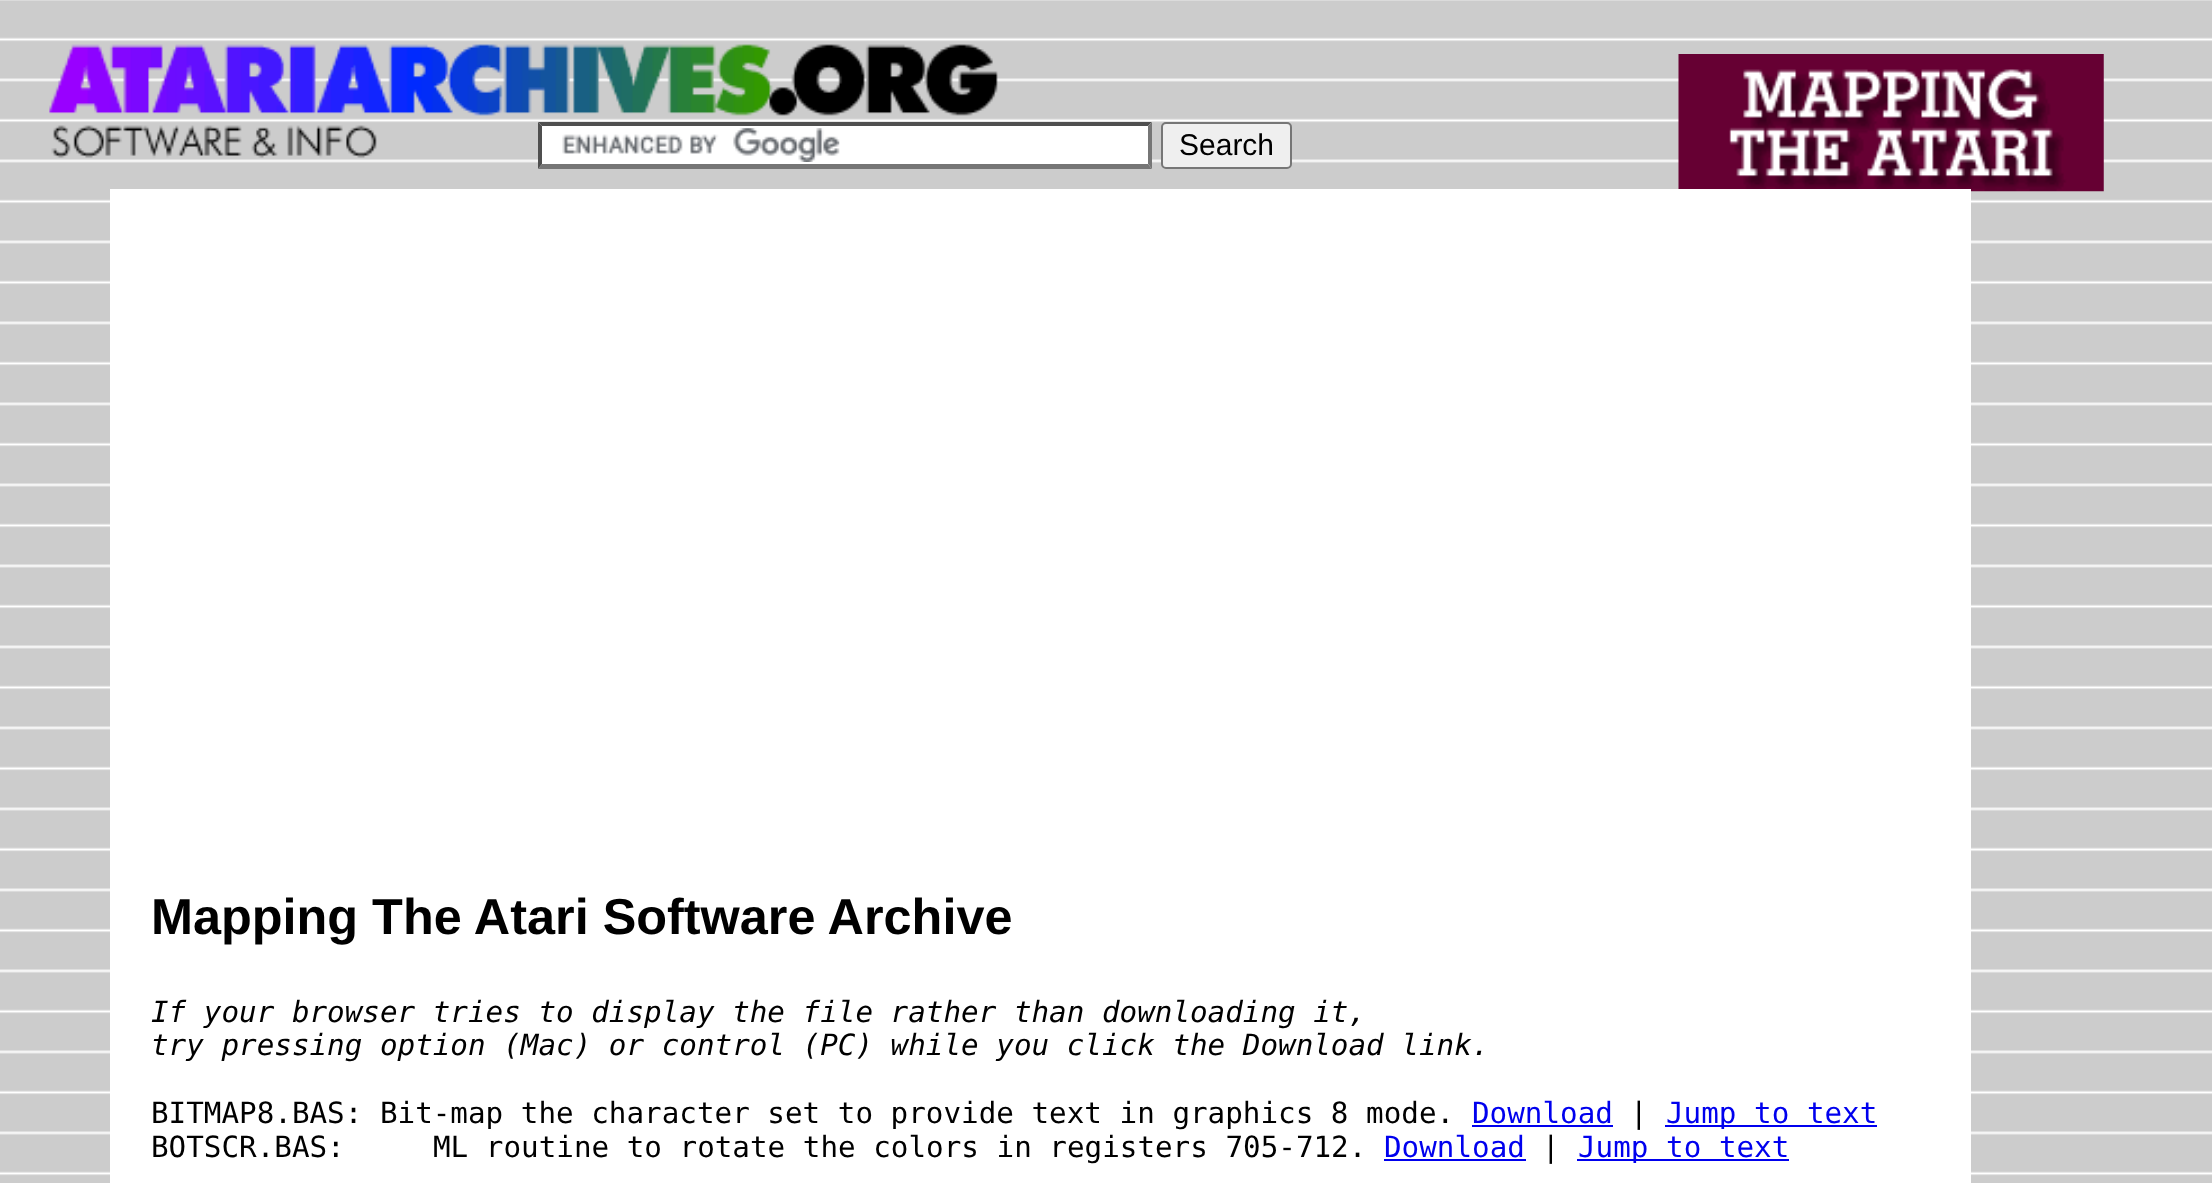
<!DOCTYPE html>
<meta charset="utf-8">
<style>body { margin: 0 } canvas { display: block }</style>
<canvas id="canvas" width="2212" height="1183"></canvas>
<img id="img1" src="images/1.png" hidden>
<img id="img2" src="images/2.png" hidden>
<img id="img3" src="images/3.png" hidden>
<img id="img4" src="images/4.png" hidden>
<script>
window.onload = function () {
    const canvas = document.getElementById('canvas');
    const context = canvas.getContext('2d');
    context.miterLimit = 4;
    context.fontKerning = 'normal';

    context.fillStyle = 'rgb(255, 255, 255)';
    context.fillRect(0, 0, 2212, 1183);
    context.drawImage(document.getElementById('img1'), 0, 0, 2212, 1183);
    context.drawImage(document.getElementById('img2'), 49, 44, 949, 114);
    context.drawImage(document.getElementById('img3'), 1678, 54, 426, 138);
    context.fillRect(110, 189, 1861, 994);
    context.fillRect(538, 122, 614, 47);
    context.drawImage(document.getElementById('img4'), 562, 128, 278, 34);
    context.fillStyle = 'rgb(79, 79, 79)';
    context.beginPath();
    context.moveTo(538, 122);
    context.lineTo(1152, 122);
    context.lineTo(1148, 126);
    context.lineTo(542, 126);
    context.closePath();
    context.fill();
    context.fillStyle = 'rgb(118, 118, 118)';
    context.beginPath();
    context.moveTo(1152, 122);
    context.lineTo(1152, 169);
    context.lineTo(1148, 164);
    context.lineTo(1148, 126);
    context.closePath();
    context.fill();
    context.beginPath();
    context.moveTo(1152, 169);
    context.lineTo(538, 169);
    context.lineTo(542, 164);
    context.lineTo(1148, 164);
    context.closePath();
    context.fill();
    context.fillStyle = 'rgb(79, 79, 79)';
    context.beginPath();
    context.moveTo(538, 169);
    context.lineTo(538, 122);
    context.lineTo(542, 126);
    context.lineTo(542, 164);
    context.closePath();
    context.fill();
    context.fillStyle = 'rgb(239, 239, 239)';
    context.beginPath();
    context.roundRect(1162, 123, 129, 45, 4);
    context.fill();
    context.strokeStyle = 'rgb(118, 118, 118)';
    context.lineWidth = 2;
    context.stroke();
    context.fillStyle = 'rgb(0, 0, 238)';
    context.fillRect(1472, 1125, 141, 2);
    context.fillRect(1665, 1125, 212, 2);
    context.fillRect(1384, 1159, 142, 2);
    context.fillRect(1577, 1159, 212, 2);
    context.font = '30px Liberation Sans';
    context.fillStyle = 'rgb(0, 0, 0)';
    context.fillText('Search', 1179, 155);
    context.font = 'bold 50.4px Liberation Sans';
    context.fillText('Mapping The Atari Software Archive', 151, 934);
    context.font = 'italic 29.25px DejaVu Sans Mono';
    context.fillText('If your browser tries to display the file rather than downloading it,', 151, 1022);
    context.fillText('try pressing option (Mac) or control (PC) while you click the Download link.', 151, 1055);
    context.font = '29.25px DejaVu Sans Mono';
    context.fillText('BITMAP8.BAS: Bit-map the character set to provide text in graphics 8 mode.', 151, 1123);
    context.fillStyle = 'rgb(0, 0, 238)';
    context.fillText('Download', 1472, 1123);
    context.fillStyle = 'rgb(0, 0, 0)';
    context.fillText('|', 1630, 1123);
    context.fillStyle = 'rgb(0, 0, 238)';
    context.fillText('Jump to text', 1666, 1123);
    context.fillStyle = 'rgb(0, 0, 0)';
    context.fillText('BOTSCR.BAS:', 151, 1157);
    context.fillText('ML routine to rotate the colors in registers 705-712.', 433, 1157);
    context.fillStyle = 'rgb(0, 0, 238)';
    context.fillText('Download', 1384, 1157);
    context.fillStyle = 'rgb(0, 0, 0)';
    context.fillText('|', 1542, 1157);
    context.fillStyle = 'rgb(0, 0, 238)';
    context.fillText('Jump to text', 1578, 1157);
};
</script>
